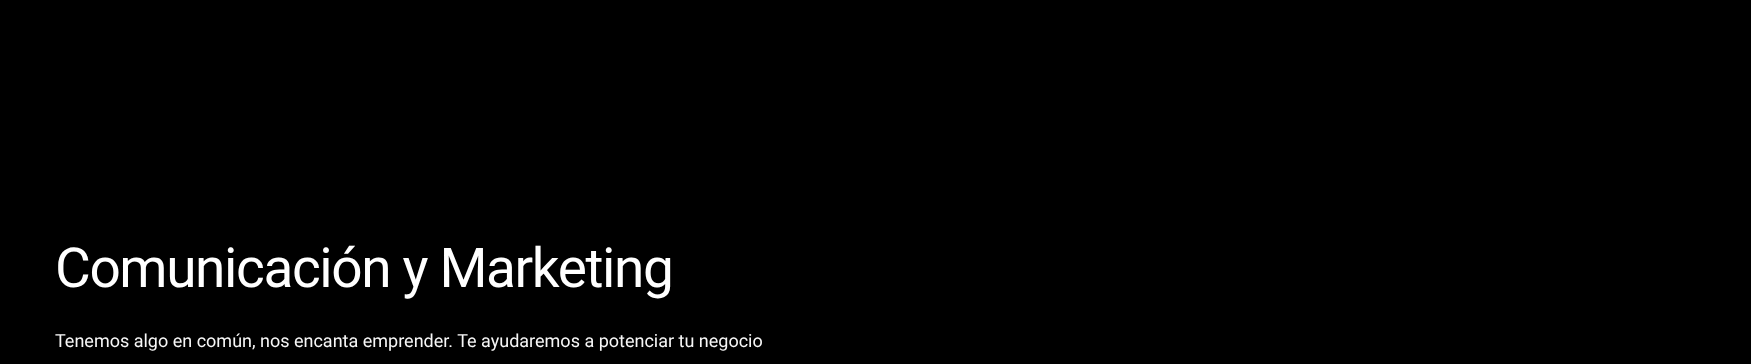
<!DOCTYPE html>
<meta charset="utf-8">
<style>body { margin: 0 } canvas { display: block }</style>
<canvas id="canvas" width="1751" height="364"></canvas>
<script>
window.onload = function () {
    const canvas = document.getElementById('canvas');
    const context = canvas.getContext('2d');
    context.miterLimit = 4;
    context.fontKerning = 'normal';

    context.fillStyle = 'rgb(0, 0, 0)';
    context.fillRect(0, 0, 1751, 364);
    context.letterSpacing = '-1.4px';
    context.font = '55px Roboto';
    context.fillStyle = 'rgb(255, 255, 255)';
    context.fillText('Comunicación y Marketing', 55, 287);
    context.letterSpacing = '0px';
    context.font = '18px Roboto';
    context.fillStyle = 'rgb(247, 247, 247)';
    context.fillText('Tenemos algo en común, nos encanta emprender. Te ayudaremos a potenciar tu negocio', 55, 347);
};
</script>
